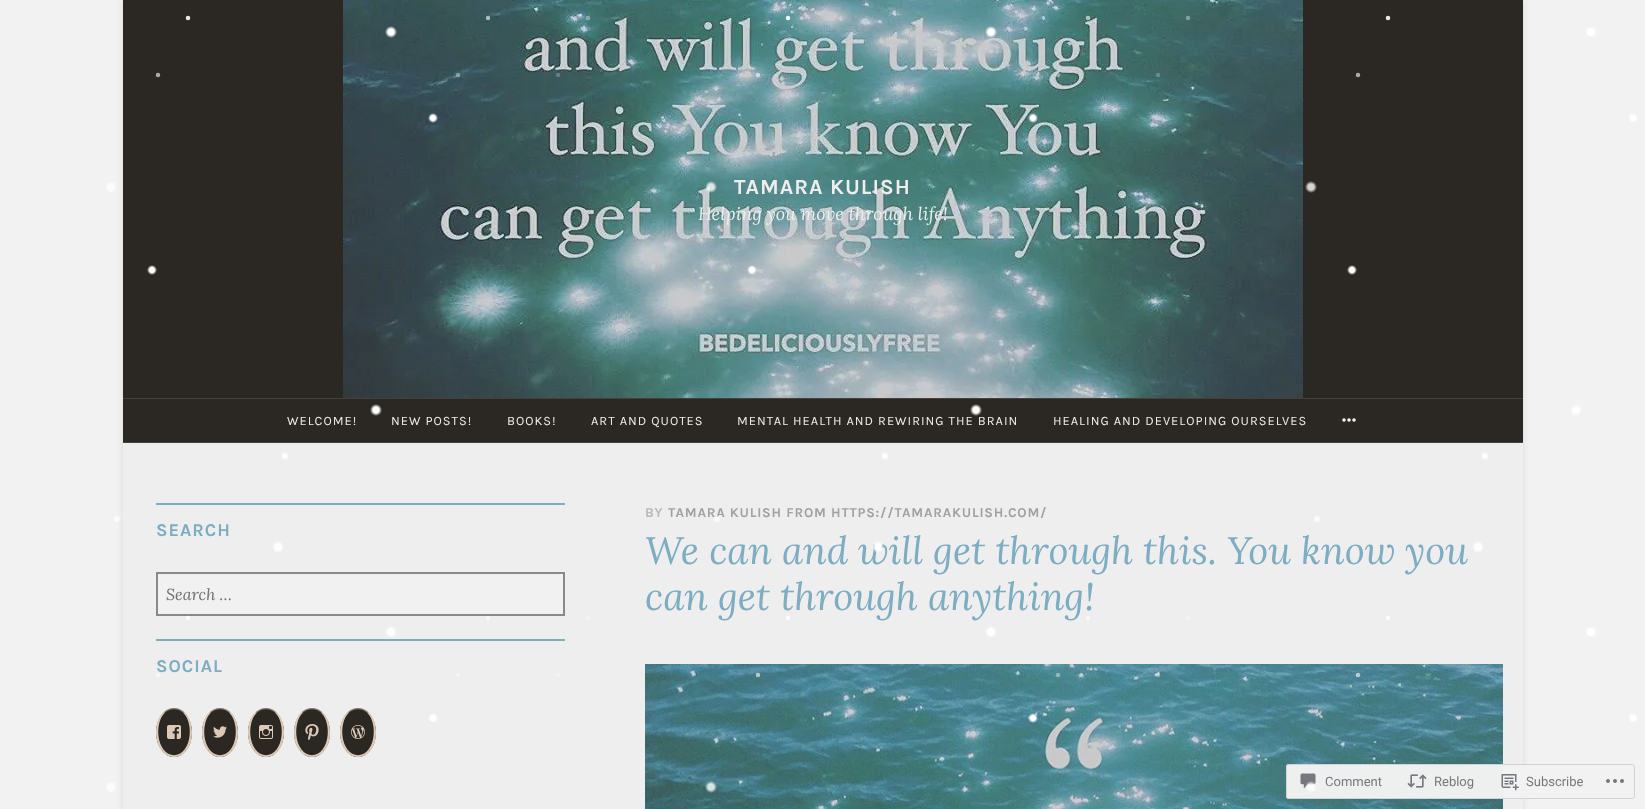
<!DOCTYPE html>
<meta charset="utf-8">
<style>body { margin: 0 } canvas { display: block }</style>
<canvas id="canvas" width="1645" height="809"></canvas>
<img id="img1" src="images/1.png" hidden>
<img id="img2" src="images/8.png" hidden>
<img id="img3" src="images/9.png" hidden>
<img id="img4" src="images/2.png" hidden>
<img id="img5" src="images/3.png" hidden>
<img id="img6" src="images/4.png" hidden>
<img id="img7" src="images/5.png" hidden>
<img id="img8" src="images/6.png" hidden>
<img id="img9" src="images/7.png" hidden>
<img id="img10" src="images/10.png" hidden>
<img id="img11" src="images/11.png" hidden>
<img id="img12" src="images/12.png" hidden>
<script>
window.onload = function () {
    const canvas = document.getElementById('canvas');
    const context = canvas.getContext('2d');
    context.miterLimit = 4;
    context.fontKerning = 'normal';
    let gradient;

    context.fillStyle = 'rgb(242, 242, 242)';
    context.fillRect(0, 0, 1645, 809);
    context.fillStyle = 'rgba(0, 0, 0, 0.1)';
    context.filter = 'blur(3px)';
    context.beginPath();
    context.rect(123, 0, 1400, 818);
    context.fill();
    context.filter = 'none';
    context.fillStyle = 'rgb(43, 40, 36)';
    context.fillRect(123, 399, 1400, 43);
    gradient = context.createRadialGradient(376, 410, 0, 376, 410, 6);
    gradient.addColorStop(0.5, 'rgb(255, 255, 255)');
    gradient.addColorStop(1, 'rgba(255, 255, 255, 0)');
    context.fillStyle = gradient;
    context.fillRect(370, 404, 12, 12);
    gradient = context.createRadialGradient(976, 410, 0, 976, 410, 6);
    gradient.addColorStop(0.5, 'rgb(255, 255, 255)');
    gradient.addColorStop(1, 'rgba(255, 255, 255, 0)');
    context.fillStyle = gradient;
    context.fillRect(970, 404, 12, 12);
    gradient = context.createRadialGradient(1576, 410, 0, 1576, 410, 6);
    gradient.addColorStop(0.5, 'rgb(255, 255, 255)');
    gradient.addColorStop(1, 'rgba(255, 255, 255, 0)');
    context.fillStyle = gradient;
    context.fillRect(1571, 405, 10, 10);
    gradient = context.createRadialGradient(117, 519, 0, 117, 519, 4);
    gradient.addColorStop(0.5, 'rgba(255, 255, 255, 0.8)');
    gradient.addColorStop(1, 'rgba(255, 255, 255, 0)');
    context.fillStyle = gradient;
    context.fillRect(113, 516, 8, 6);
    context.fillStyle = 'rgb(239, 238, 238)';
    context.fillRect(123, 443, 1400, 366);
    gradient = context.createRadialGradient(1317, 519, 0, 1317, 519, 4);
    gradient.addColorStop(0.5, 'rgba(255, 255, 255, 0.8)');
    gradient.addColorStop(1, 'rgba(255, 255, 255, 0)');
    context.fillStyle = gradient;
    context.fillRect(1313, 515, 8, 8);
    context.fillStyle = 'rgb(43, 40, 36)';
    context.fillRect(123, 0, 1400, 398);
    gradient = context.createRadialGradient(152, 270, 0, 152, 270, 5);
    gradient.addColorStop(0.5, 'rgb(255, 255, 255)');
    gradient.addColorStop(1, 'rgba(255, 255, 255, 0)');
    context.fillStyle = gradient;
    context.fillRect(147, 265, 10, 10);
    context.drawImage(document.getElementById('img1'), 343, 0, 960, 398);
    gradient = context.createRadialGradient(752, 270, 0, 752, 270, 5);
    gradient.addColorStop(0.5, 'rgb(255, 255, 255)');
    gradient.addColorStop(1, 'rgba(255, 255, 255, 0)');
    context.fillStyle = gradient;
    context.fillRect(747, 265, 10, 10);
    gradient = context.createRadialGradient(1352, 270, 0, 1352, 270, 5);
    gradient.addColorStop(0.5, 'rgb(255, 255, 255)');
    gradient.addColorStop(1, 'rgba(255, 255, 255, 0)');
    context.fillStyle = gradient;
    context.fillRect(1347, 265, 10, 10);
    gradient = context.createRadialGradient(278, 547, 0, 278, 547, 6);
    gradient.addColorStop(0.5, 'rgb(255, 255, 255)');
    gradient.addColorStop(1, 'rgba(255, 255, 255, 0)');
    context.fillStyle = gradient;
    context.fillRect(272, 541, 12, 12);
    gradient = context.createRadialGradient(1478, 547, 0, 1478, 547, 6);
    gradient.addColorStop(0.5, 'rgb(255, 255, 255)');
    gradient.addColorStop(1, 'rgba(255, 255, 255, 0)');
    context.fillStyle = gradient;
    context.fillRect(1472, 541, 12, 12);
    gradient = context.createRadialGradient(285, 456, 0, 285, 456, 4);
    gradient.addColorStop(0.5, 'rgb(255, 255, 255)');
    gradient.addColorStop(1, 'rgba(255, 255, 255, 0)');
    context.fillStyle = gradient;
    context.fillRect(281, 452, 8, 8);
    gradient = context.createRadialGradient(885, 456, 0, 885, 456, 4);
    gradient.addColorStop(0.5, 'rgb(255, 255, 255)');
    gradient.addColorStop(1, 'rgba(255, 255, 255, 0)');
    context.fillStyle = gradient;
    context.fillRect(881, 452, 8, 8);
    gradient = context.createRadialGradient(1485, 456, 0, 1485, 456, 4);
    gradient.addColorStop(0.5, 'rgb(255, 255, 255)');
    gradient.addColorStop(1, 'rgba(255, 255, 255, 0)');
    context.fillStyle = gradient;
    context.fillRect(1481, 452, 8, 8);
    context.beginPath();
    context.moveTo(158, 75);
    context.lineTo(1358.2, 75);
    context.strokeStyle = 'rgba(255, 255, 255, 0.6)';
    context.lineWidth = 4.5;
    context.lineCap = 'round';
    context.setLineDash([0, 600]);
    context.stroke();
    gradient = context.createRadialGradient(433, 118, 0, 433, 118, 5);
    gradient.addColorStop(0.5, 'rgb(255, 255, 255)');
    gradient.addColorStop(1, 'rgba(255, 255, 255, 0)');
    context.fillStyle = gradient;
    context.fillRect(428, 113, 10, 10);
    gradient = context.createRadialGradient(1033, 118, 0, 1033, 118, 5);
    gradient.addColorStop(0.5, 'rgb(255, 255, 255)');
    gradient.addColorStop(1, 'rgba(255, 255, 255, 0)');
    context.fillStyle = gradient;
    context.fillRect(1028, 113, 10, 10);
    gradient = context.createRadialGradient(1633, 118, 0, 1633, 118, 5);
    gradient.addColorStop(0.5, 'rgb(255, 255, 255)');
    gradient.addColorStop(1, 'rgba(255, 255, 255, 0)');
    context.fillStyle = gradient;
    context.fillRect(1629, 114, 8, 8);
    gradient = context.createRadialGradient(433, 718, 0, 433, 718, 5);
    gradient.addColorStop(0.5, 'rgb(255, 255, 255)');
    gradient.addColorStop(1, 'rgba(255, 255, 255, 0)');
    context.fillStyle = gradient;
    context.fillRect(428, 713, 10, 10);
    context.drawImage(document.getElementById('img2'), 645, 664, 858, 145);
    gradient = context.createRadialGradient(1033, 718, 0, 1033, 718, 5);
    gradient.addColorStop(0.5, 'rgb(255, 255, 255)');
    gradient.addColorStop(1, 'rgba(255, 255, 255, 0)');
    context.fillStyle = gradient;
    context.fillRect(1028, 713, 10, 10);
    gradient = context.createRadialGradient(1633, 718, 0, 1633, 718, 5);
    gradient.addColorStop(0.5, 'rgb(255, 255, 255)');
    gradient.addColorStop(1, 'rgba(255, 255, 255, 0)');
    context.fillStyle = gradient;
    context.fillRect(1629, 714, 8, 8);
    context.beginPath();
    context.moveTo(188, 18);
    context.lineTo(1388.2, 18);
    context.strokeStyle = 'rgba(255, 255, 255, 0.9)';
    context.stroke();
    gradient = context.createRadialGradient(391, 32, 0, 391, 32, 6);
    gradient.addColorStop(0.5, 'rgb(255, 255, 255)');
    gradient.addColorStop(1, 'rgba(255, 255, 255, 0)');
    context.fillStyle = gradient;
    context.fillRect(385, 26, 12, 12);
    gradient = context.createRadialGradient(991, 32, 0, 991, 32, 6);
    gradient.addColorStop(0.5, 'rgb(255, 255, 255)');
    gradient.addColorStop(1, 'rgba(255, 255, 255, 0)');
    context.fillStyle = gradient;
    context.fillRect(985, 26, 12, 12);
    gradient = context.createRadialGradient(1591, 32, 0, 1591, 32, 6);
    gradient.addColorStop(0.5, 'rgb(255, 255, 255)');
    gradient.addColorStop(1, 'rgba(255, 255, 255, 0)');
    context.fillStyle = gradient;
    context.fillRect(1586, 27, 10, 10);
    gradient = context.createRadialGradient(391, 632, 0, 391, 632, 6);
    gradient.addColorStop(0.5, 'rgb(255, 255, 255)');
    gradient.addColorStop(1, 'rgba(255, 255, 255, 0)');
    context.fillStyle = gradient;
    context.fillRect(385, 626, 12, 12);
    gradient = context.createRadialGradient(991, 632, 0, 991, 632, 6);
    gradient.addColorStop(0.5, 'rgb(255, 255, 255)');
    gradient.addColorStop(1, 'rgba(255, 255, 255, 0)');
    context.fillStyle = gradient;
    context.fillRect(985, 626, 12, 12);
    gradient = context.createRadialGradient(1591, 632, 0, 1591, 632, 6);
    gradient.addColorStop(0.5, 'rgb(255, 255, 255)');
    gradient.addColorStop(1, 'rgba(255, 255, 255, 0)');
    context.fillStyle = gradient;
    context.fillRect(1586, 627, 10, 10);
    gradient = context.createRadialGradient(111, 187, 0, 111, 187, 6);
    gradient.addColorStop(0.5, 'rgba(255, 255, 255, 0.8)');
    gradient.addColorStop(1, 'rgba(255, 255, 255, 0)');
    context.fillStyle = gradient;
    context.fillRect(106, 182, 10, 10);
    gradient = context.createRadialGradient(711, 187, 0, 711, 187, 6);
    gradient.addColorStop(0.5, 'rgba(255, 255, 255, 0.8)');
    gradient.addColorStop(1, 'rgba(255, 255, 255, 0)');
    context.fillStyle = gradient;
    context.fillRect(705, 181, 12, 12);
    gradient = context.createRadialGradient(1311, 187, 0, 1311, 187, 6);
    gradient.addColorStop(0.5, 'rgba(255, 255, 255, 0.8)');
    gradient.addColorStop(1, 'rgba(255, 255, 255, 0)');
    context.fillStyle = gradient;
    context.fillRect(1305, 181, 12, 12);
    gradient = context.createRadialGradient(111, 787, 0, 111, 787, 6);
    gradient.addColorStop(0.5, 'rgba(255, 255, 255, 0.8)');
    gradient.addColorStop(1, 'rgba(255, 255, 255, 0)');
    context.fillStyle = gradient;
    context.fillRect(106, 782, 10, 10);
    gradient = context.createRadialGradient(711, 787, 0, 711, 787, 6);
    gradient.addColorStop(0.5, 'rgba(255, 255, 255, 0.8)');
    gradient.addColorStop(1, 'rgba(255, 255, 255, 0)');
    context.fillStyle = gradient;
    context.fillRect(705, 781, 12, 12);
    context.fillStyle = 'rgba(242, 242, 242, 0.98)';
    context.beginPath();
    context.roundRect(1286, 764, 349, 35, 3);
    context.fill();
    context.beginPath();
    context.roundRect(1286.5, 764.5, 348, 34, 2.5);
    context.strokeStyle = 'rgba(209, 209, 211, 0.98)';
    context.lineWidth = 1;
    context.setLineDash([]);
    context.stroke();
    context.drawImage(document.getElementById('img3'), 1300, 773, 16, 16);
    gradient = context.createRadialGradient(1311, 787, 0, 1311, 787, 6);
    gradient.addColorStop(0.5, 'rgba(255, 255, 255, 0.8)');
    gradient.addColorStop(1, 'rgba(255, 255, 255, 0)');
    context.fillStyle = gradient;
    context.fillRect(1305, 781, 11, 11);
    context.beginPath();
    context.moveTo(-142, 75);
    context.lineTo(1058.2, 75);
    context.strokeStyle = 'rgba(255, 255, 255, 0.39)';
    context.lineWidth = 4.5;
    context.setLineDash([0, 600]);
    context.stroke();
    context.beginPath();
    context.moveTo(-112, 18);
    context.lineTo(1088.2, 18);
    context.strokeStyle = 'rgba(255, 255, 255, 0.59)';
    context.stroke();
    context.beginPath();
    context.moveTo(-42, 75);
    context.lineTo(1158.2, 75);
    context.strokeStyle = 'rgba(255, 255, 255, 0.24)';
    context.stroke();
    context.beginPath();
    context.moveTo(-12, 18);
    context.lineTo(1188.2, 18);
    context.strokeStyle = 'rgba(255, 255, 255, 0.36)';
    context.stroke();
    context.fillStyle = 'rgb(69, 65, 58)';
    context.fillRect(123, 398, 1400, 1);
    context.fillRect(123, 442, 1400, 1);
    context.drawImage(document.getElementById('img4'), 1342, 418, 14, 4);
    context.fillStyle = 'rgb(124, 173, 194)';
    context.fillRect(156, 503, 409, 2);
    context.fillStyle = 'rgb(241, 241, 241)';
    context.beginPath();
    context.rect(157, 573, 407, 42);
    context.fill();
    context.strokeStyle = 'rgb(137, 137, 137)';
    context.lineWidth = 2;
    context.setLineDash([]);
    context.stroke();
    context.fillStyle = 'rgb(124, 173, 194)';
    context.fillRect(156, 639, 409, 2);
    context.fillStyle = 'rgb(43, 40, 36)';
    context.beginPath();
    context.ellipse(174, 732.5, 18, 24.5, 0, 0, 2 * Math.PI);
    context.fill();
    context.fillStyle = 'rgba(221, 202, 182, 0.5)';
    context.beginPath();
    context.moveTo(174, 708);
    context.bezierCurveTo(170, 708, 166.5, 709.5, 163.5, 712);
    context.lineTo(165, 712.5);
    context.bezierCurveTo(170, 708, 178, 708, 183, 712.5);
    context.lineTo(184.5, 712);
    context.bezierCurveTo(181.5, 709.5, 178, 708, 174, 708);
    context.closePath();
    context.fill();
    context.fillStyle = 'rgb(221, 202, 182)';
    context.beginPath();
    context.moveTo(192, 732.5);
    context.bezierCurveTo(192, 739.5, 190, 746.5, 186, 751);
    context.lineTo(184.5, 749.5);
    context.bezierCurveTo(192, 740, 191.5, 720.5, 183, 712.5);
    context.lineTo(184.5, 712);
    context.bezierCurveTo(189.5, 716.5, 192, 724.5, 192, 732.5);
    context.closePath();
    context.fill();
    context.beginPath();
    context.moveTo(186, 751);
    context.bezierCurveTo(180, 759, 168, 759, 162, 751);
    context.lineTo(163.5, 749.5);
    context.bezierCurveTo(169, 757, 179, 757, 184.5, 749.5);
    context.closePath();
    context.fill();
    context.beginPath();
    context.moveTo(156, 732.5);
    context.bezierCurveTo(156, 724.5, 158.5, 716.5, 163.5, 712);
    context.lineTo(165, 712.5);
    context.bezierCurveTo(156.5, 720.5, 156, 740, 163.5, 749.5);
    context.lineTo(162, 751);
    context.bezierCurveTo(158, 746.5, 156, 739.5, 156, 732.5);
    context.closePath();
    context.fill();
    context.drawImage(document.getElementById('img5'), 167, 725, 14, 14);
    context.fillStyle = 'rgb(43, 40, 36)';
    context.beginPath();
    context.ellipse(220, 732.5, 18, 24.5, 0, 0, 2 * Math.PI);
    context.fill();
    context.fillStyle = 'rgba(221, 202, 182, 0.5)';
    context.beginPath();
    context.moveTo(220, 708);
    context.bezierCurveTo(216, 708, 212.5, 709.5, 209.5, 712);
    context.lineTo(211, 712.5);
    context.bezierCurveTo(216, 708, 224, 708, 229, 712.5);
    context.lineTo(230.5, 712);
    context.bezierCurveTo(227.5, 709.5, 224, 708, 220, 708);
    context.closePath();
    context.fill();
    context.fillStyle = 'rgb(221, 202, 182)';
    context.beginPath();
    context.moveTo(238, 732.5);
    context.bezierCurveTo(238, 739.5, 236, 746.5, 232, 751);
    context.lineTo(230.5, 749.5);
    context.bezierCurveTo(238, 740, 237.5, 720.5, 229, 712.5);
    context.lineTo(230.5, 712);
    context.bezierCurveTo(235.5, 716.5, 238, 724.5, 238, 732.5);
    context.closePath();
    context.fill();
    context.beginPath();
    context.moveTo(232, 751);
    context.bezierCurveTo(226, 759, 214, 759, 208, 751);
    context.lineTo(209.5, 749.5);
    context.bezierCurveTo(215, 757, 225, 757, 230.5, 749.5);
    context.closePath();
    context.fill();
    context.beginPath();
    context.moveTo(202, 732.5);
    context.bezierCurveTo(202, 724.5, 204.5, 716.5, 209.5, 712);
    context.lineTo(211, 712.5);
    context.bezierCurveTo(202.5, 720.5, 202, 740, 209.5, 749.5);
    context.lineTo(208, 751);
    context.bezierCurveTo(204, 746.5, 202, 739.5, 202, 732.5);
    context.closePath();
    context.fill();
    context.drawImage(document.getElementById('img6'), 213, 726, 14, 12);
    context.fillStyle = 'rgb(43, 40, 36)';
    context.beginPath();
    context.ellipse(266, 732.5, 18, 24.5, 0, 0, 2 * Math.PI);
    context.fill();
    context.fillStyle = 'rgba(221, 202, 182, 0.5)';
    context.beginPath();
    context.moveTo(266, 708);
    context.bezierCurveTo(262, 708, 258.5, 709.5, 255.5, 712);
    context.lineTo(257, 712.5);
    context.bezierCurveTo(262, 708, 270, 708, 275, 712.5);
    context.lineTo(276.5, 712);
    context.bezierCurveTo(273.5, 709.5, 270, 708, 266, 708);
    context.closePath();
    context.fill();
    context.fillStyle = 'rgb(221, 202, 182)';
    context.beginPath();
    context.moveTo(284, 732.5);
    context.bezierCurveTo(284, 739.5, 282, 746.5, 278, 751);
    context.lineTo(276.5, 749.5);
    context.bezierCurveTo(284, 740, 283.5, 720.5, 275, 712.5);
    context.lineTo(276.5, 712);
    context.bezierCurveTo(281.5, 716.5, 284, 724.5, 284, 732.5);
    context.closePath();
    context.fill();
    context.beginPath();
    context.moveTo(278, 751);
    context.bezierCurveTo(272, 759, 260, 759, 254, 751);
    context.lineTo(255.5, 749.5);
    context.bezierCurveTo(261, 757, 271, 757, 276.5, 749.5);
    context.closePath();
    context.fill();
    context.beginPath();
    context.moveTo(248, 732.5);
    context.bezierCurveTo(248, 724.5, 250.5, 716.5, 255.5, 712);
    context.lineTo(257, 712.5);
    context.bezierCurveTo(248.5, 720.5, 248, 740, 255.5, 749.5);
    context.lineTo(254, 751);
    context.bezierCurveTo(250, 746.5, 248, 739.5, 248, 732.5);
    context.closePath();
    context.fill();
    context.drawImage(document.getElementById('img7'), 259, 725, 14, 14);
    context.fillStyle = 'rgb(43, 40, 36)';
    context.beginPath();
    context.ellipse(312, 732.5, 18, 24.5, 0, 0, 2 * Math.PI);
    context.fill();
    context.fillStyle = 'rgba(221, 202, 182, 0.5)';
    context.beginPath();
    context.moveTo(312, 708);
    context.bezierCurveTo(308, 708, 304.5, 709.5, 301.5, 712);
    context.lineTo(303, 712.5);
    context.bezierCurveTo(308, 708, 316, 708, 321, 712.5);
    context.lineTo(322.5, 712);
    context.bezierCurveTo(319.5, 709.5, 316, 708, 312, 708);
    context.closePath();
    context.fill();
    context.fillStyle = 'rgb(221, 202, 182)';
    context.beginPath();
    context.moveTo(330, 732.5);
    context.bezierCurveTo(330, 739.5, 328, 746.5, 324, 751);
    context.lineTo(322.5, 749.5);
    context.bezierCurveTo(330, 740, 329.5, 720.5, 321, 712.5);
    context.lineTo(322.5, 712);
    context.bezierCurveTo(327.5, 716.5, 330, 724.5, 330, 732.5);
    context.closePath();
    context.fill();
    context.beginPath();
    context.moveTo(324, 751);
    context.bezierCurveTo(318, 759, 306, 759, 300, 751);
    context.lineTo(301.5, 749.5);
    context.bezierCurveTo(307, 757, 317, 757, 322.5, 749.5);
    context.closePath();
    context.fill();
    context.beginPath();
    context.moveTo(294, 732.5);
    context.bezierCurveTo(294, 724.5, 296.5, 716.5, 301.5, 712);
    context.lineTo(303, 712.5);
    context.bezierCurveTo(294.5, 720.5, 294, 740, 301.5, 749.5);
    context.lineTo(300, 751);
    context.bezierCurveTo(296, 746.5, 294, 739.5, 294, 732.5);
    context.closePath();
    context.fill();
    context.drawImage(document.getElementById('img8'), 305, 724, 14, 16);
    context.fillStyle = 'rgb(43, 40, 36)';
    context.beginPath();
    context.ellipse(358, 732.5, 18, 24.5, 0, 0, 2 * Math.PI);
    context.fill();
    context.fillStyle = 'rgba(221, 202, 182, 0.5)';
    context.beginPath();
    context.moveTo(358, 708);
    context.bezierCurveTo(354, 708, 350.5, 709.5, 347.5, 712);
    context.lineTo(349, 712.5);
    context.bezierCurveTo(354, 708, 362, 708, 367, 712.5);
    context.lineTo(368.5, 712);
    context.bezierCurveTo(365.5, 709.5, 362, 708, 358, 708);
    context.closePath();
    context.fill();
    context.fillStyle = 'rgb(221, 202, 182)';
    context.beginPath();
    context.moveTo(376, 732.5);
    context.bezierCurveTo(376, 739.5, 374, 746.5, 370, 751);
    context.lineTo(368.5, 749.5);
    context.bezierCurveTo(376, 740, 375.5, 720.5, 367, 712.5);
    context.lineTo(368.5, 712);
    context.bezierCurveTo(373.5, 716.5, 376, 724.5, 376, 732.5);
    context.closePath();
    context.fill();
    context.beginPath();
    context.moveTo(370, 751);
    context.bezierCurveTo(364, 759, 352, 759, 346, 751);
    context.lineTo(347.5, 749.5);
    context.bezierCurveTo(353, 757, 363, 757, 368.5, 749.5);
    context.closePath();
    context.fill();
    context.beginPath();
    context.moveTo(340, 732.5);
    context.bezierCurveTo(340, 724.5, 342.5, 716.5, 347.5, 712);
    context.lineTo(349, 712.5);
    context.bezierCurveTo(340.5, 720.5, 340, 740, 347.5, 749.5);
    context.lineTo(346, 751);
    context.bezierCurveTo(342, 746.5, 340, 739.5, 340, 732.5);
    context.closePath();
    context.fill();
    context.drawImage(document.getElementById('img9'), 351, 725, 14, 14);
    context.drawImage(document.getElementById('img10'), 1407, 774, 20, 14);
    context.drawImage(document.getElementById('img11'), 1501, 774, 18, 17);
    context.drawImage(document.getElementById('img12'), 1606, 779, 18, 4);
    context.letterSpacing = '1px';
    context.font = 'bold 21.5px Karla';
    context.fillStyle = 'rgb(239, 238, 237)';
    context.fillText('TAMARA KULISH', 734, 194);
    context.letterSpacing = '0px';
    context.font = 'italic 18px Lora';
    context.fillText('Helping you move through life!', 698, 220);
    context.letterSpacing = '1px';
    context.font = '12.8px Karla';
    context.fillText('WELCOME!', 287, 425);
    context.fillText('NEW POSTS!', 391, 425);
    context.fillText('BOOKS!', 507, 425);
    context.fillText('ART AND QUOTES', 591, 425);
    context.fillText('MENTAL HEALTH AND REWIRING THE BRAIN', 737, 425);
    context.fillText('HEALING AND DEVELOPING OURSELVES', 1053, 425);
    context.font = 'bold 18px Karla';
    context.fillStyle = 'rgb(124, 173, 194)';
    context.fillText('SEARCH', 156, 536);
    context.letterSpacing = '0px';
    context.font = 'italic 16px Lora';
    context.fillStyle = 'rgb(111, 111, 111)';
    context.fillText('Search …', 166, 600);
    context.letterSpacing = '1px';
    context.font = 'bold 18px Karla';
    context.fillStyle = 'rgb(124, 173, 194)';
    context.fillText('SOCIAL', 156, 672);
    context.beginPath();
    context.moveTo(158, 675);
    context.lineTo(1358.2, 675);
    context.strokeStyle = 'rgba(255, 255, 255, 0.6)';
    context.lineWidth = 4.5;
    context.setLineDash([0, 600]);
    context.stroke();
    context.beginPath();
    context.moveTo(-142, 675);
    context.lineTo(1058.2, 675);
    context.strokeStyle = 'rgba(255, 255, 255, 0.39)';
    context.stroke();
    context.beginPath();
    context.moveTo(-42, 675);
    context.lineTo(1158.2, 675);
    context.strokeStyle = 'rgba(255, 255, 255, 0.24)';
    context.stroke();
    context.letterSpacing = '0.8px';
    context.font = 'bold 13.6px Karla';
    context.fillStyle = 'rgb(185, 185, 185)';
    context.fillText('BY', 645, 517);
    context.fillStyle = 'rgb(161, 161, 161)';
    context.fillText('TAMARA KULISH FROM HTTPS://TAMARAKULISH.COM/', 668, 517);
    gradient = context.createRadialGradient(717, 519, 0, 717, 519, 4);
    gradient.addColorStop(0.5, 'rgba(255, 255, 255, 0.8)');
    gradient.addColorStop(1, 'rgba(255, 255, 255, 0)');
    context.fillStyle = gradient;
    context.fillRect(713, 515, 8, 8);
    context.letterSpacing = '0px';
    context.font = 'italic 38.4px Lora';
    context.fillStyle = 'rgb(124, 173, 194)';
    context.fillText('We can and will get through this. You know you', 645, 564);
    gradient = context.createRadialGradient(878, 547, 0, 878, 547, 6);
    gradient.addColorStop(0.5, 'rgb(255, 255, 255)');
    gradient.addColorStop(1, 'rgba(255, 255, 255, 0)');
    context.fillStyle = gradient;
    context.fillRect(872, 541, 12, 12);
    context.fillStyle = 'rgb(124, 173, 194)';
    context.fillText('can get through anything!', 645, 610);
    context.beginPath();
    context.moveTo(188, 618);
    context.lineTo(1388.2, 618);
    context.strokeStyle = 'rgb(253, 253, 253)';
    context.stroke();
    context.beginPath();
    context.moveTo(-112, 618);
    context.lineTo(1088.2, 618);
    context.strokeStyle = 'rgb(249, 248, 248)';
    context.stroke();
    context.beginPath();
    context.moveTo(-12, 618);
    context.lineTo(1188.2, 618);
    context.strokeStyle = 'rgb(245, 244, 244)';
    context.stroke();
    context.font = '13px Roboto';
    context.fillStyle = 'rgb(117, 121, 125)';
    context.fillText('Comment', 1325, 786);
    context.fillText('Reblog', 1434, 786);
    context.fillText('Subscribe', 1526, 786);
};
</script>
